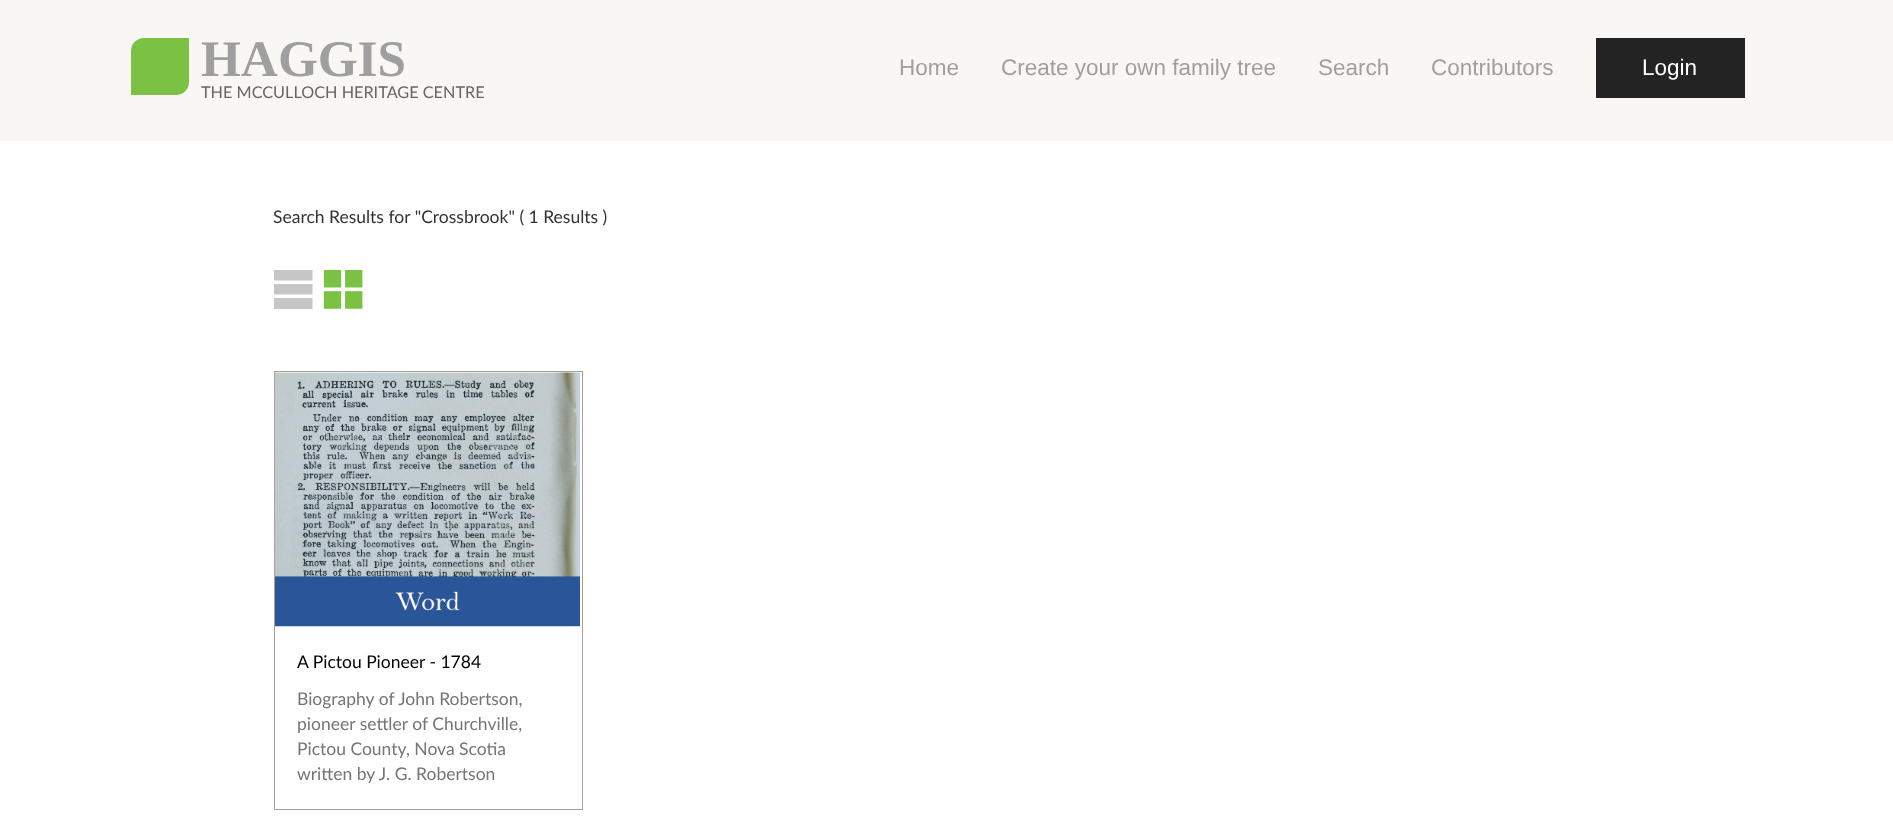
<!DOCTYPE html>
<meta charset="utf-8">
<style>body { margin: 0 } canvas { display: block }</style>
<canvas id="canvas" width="1893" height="831"></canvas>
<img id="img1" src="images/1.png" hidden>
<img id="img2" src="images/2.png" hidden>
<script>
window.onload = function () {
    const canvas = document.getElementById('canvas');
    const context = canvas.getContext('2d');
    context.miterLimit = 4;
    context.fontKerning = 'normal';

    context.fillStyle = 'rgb(255, 255, 255)';
    context.fillRect(0, 0, 1893, 831);
    context.fillStyle = 'rgb(248, 247, 243)';
    context.fillRect(0, 0, 1893, 141);
    context.fillStyle = 'rgb(122, 193, 68)';
    context.beginPath();
    context.roundRect(131, 38, 58, 57, [13, 0, 13, 0]);
    context.fill();
    context.fillStyle = 'rgb(35, 35, 35)';
    context.fillRect(1596, 38, 149, 60);
    context.fillStyle = 'rgb(198, 198, 198)';
    context.beginPath();
    context.moveTo(312.5, 280.5);
    context.lineTo(312.5, 270);
    context.lineTo(274, 270);
    context.lineTo(274, 280.5);
    context.closePath();
    context.moveTo(312.5, 298);
    context.lineTo(312.5, 309);
    context.lineTo(274, 309);
    context.lineTo(274, 298);
    context.closePath();
    context.moveTo(312.5, 284);
    context.lineTo(312.5, 294.5);
    context.lineTo(274, 294.5);
    context.lineTo(274, 284);
    context.closePath();
    context.fill();
    context.drawImage(document.getElementById('img1'), 323, 270, 40, 39);
    context.strokeStyle = 'rgb(169, 160, 151)';
    context.strokeRect(274.5, 371.5, 308, 438);
    context.drawImage(document.getElementById('img2'), 275, 372, 305, 255);
    context.font = 'bold 51.25px Liberation Serif';
    context.fillStyle = 'rgb(159, 159, 159)';
    context.fillText('HAGGIS', 201, 76);
    context.font = '16.25px Lato';
    context.fillStyle = 'rgb(105, 101, 96)';
    context.fillText('THE MCCULLOCH HERITAGE CENTRE', 201, 98);
    context.font = '22.5px Liberation Sans';
    context.fillStyle = 'rgb(159, 159, 159)';
    context.fillText('Home', 899, 75);
    context.fillText('Create your own family tree', 1001, 75);
    context.fillText('Search', 1318, 75);
    context.fillText('Contributors', 1431, 75);
    context.fillStyle = 'rgb(255, 255, 255)';
    context.fillText('Login', 1642, 75);
    context.font = '17.5px Lato';
    context.fillStyle = 'rgb(51, 51, 51)';
    context.fillText('Search Results for "Crossbrook" ( 1 Results )', 273, 223);
    context.fillStyle = 'rgb(0, 0, 0)';
    context.fillText('A Pictou Pioneer - 1784', 297, 668);
    context.fillStyle = 'rgb(117, 117, 117)';
    context.fillText('Biography of John Robertson,', 297, 705);
    context.fillText('pioneer settler of Churchville,', 297, 730);
    context.fillText('Pictou County, Nova Scotia', 297, 755);
    context.fillText('written by J. G. Robertson', 297, 780);
};
</script>
